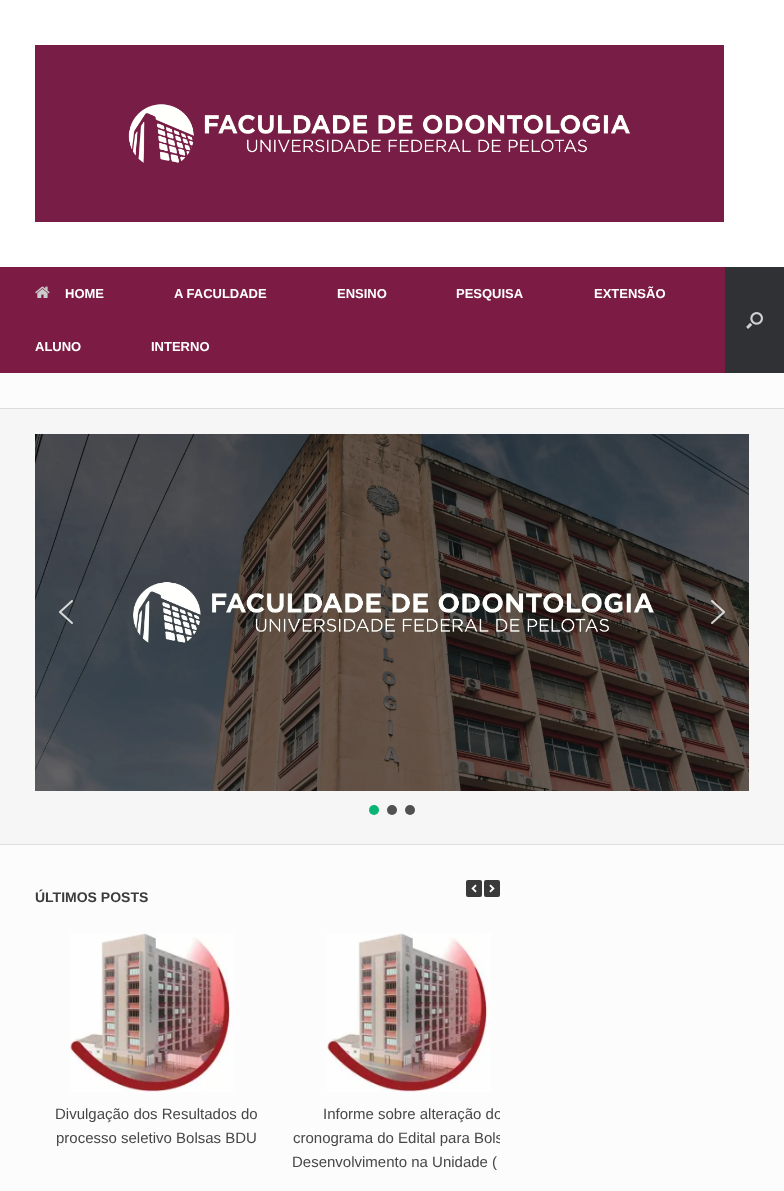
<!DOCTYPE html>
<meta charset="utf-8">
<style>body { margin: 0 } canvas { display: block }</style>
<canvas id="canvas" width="784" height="1191"></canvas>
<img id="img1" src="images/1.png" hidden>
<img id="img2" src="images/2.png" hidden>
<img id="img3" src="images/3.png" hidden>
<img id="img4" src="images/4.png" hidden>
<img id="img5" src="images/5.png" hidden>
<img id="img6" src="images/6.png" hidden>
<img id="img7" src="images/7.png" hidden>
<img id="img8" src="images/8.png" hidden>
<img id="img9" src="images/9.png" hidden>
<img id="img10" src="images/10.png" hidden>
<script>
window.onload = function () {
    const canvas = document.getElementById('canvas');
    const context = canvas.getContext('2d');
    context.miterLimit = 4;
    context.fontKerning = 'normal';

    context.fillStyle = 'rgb(255, 255, 255)';
    context.fillRect(0, 0, 784, 1191);
    context.drawImage(document.getElementById('img1'), 35, 45, 689, 177);
    context.fillStyle = 'rgb(124, 28, 68)';
    context.fillRect(0, 267, 725, 106);
    context.drawImage(document.getElementById('img2'), 35, 286, 15, 12);
    context.fillStyle = 'rgb(48, 49, 52)';
    context.fillRect(725, 267, 59, 106);
    context.drawImage(document.getElementById('img3'), 746, 312, 17, 17);
    context.fillStyle = 'rgb(252, 252, 252)';
    context.fillRect(0, 373, 784, 818);
    context.fillStyle = 'rgb(246, 246, 246)';
    context.fillRect(0, 409, 784, 435);
    context.fillStyle = 'rgb(221, 221, 221)';
    context.fillRect(0, 408, 784, 1);
    context.fillRect(0, 844, 784, 1);
    context.drawImage(document.getElementById('img4'), 35, 434, 714, 357);
    context.drawImage(document.getElementById('img5'), 59, 600, 14, 24);
    context.drawImage(document.getElementById('img6'), 711, 600, 14, 24);
    context.fillStyle = 'rgb(9, 180, 116)';
    context.beginPath();
    context.arc(374, 810, 5, 0, 2 * Math.PI);
    context.fill();
    context.fillStyle = 'rgb(81, 81, 81)';
    context.beginPath();
    context.arc(392, 810, 5, 0, 2 * Math.PI);
    context.fill();
    context.beginPath();
    context.arc(410, 810, 5, 0, 2 * Math.PI);
    context.fill();
    context.fillStyle = 'rgb(58, 58, 58)';
    context.beginPath();
    context.roundRect(466, 880, 16, 17, 2);
    context.fill();
    context.drawImage(document.getElementById('img7'), 471, 884, 6, 9);
    context.beginPath();
    context.roundRect(484, 880, 16, 17, 2);
    context.fill();
    context.drawImage(document.getElementById('img8'), 489, 884, 6, 9);
    context.drawImage(document.getElementById('img9'), 70, 933, 164, 159);
    context.drawImage(document.getElementById('img10'), 327, 933, 164, 159);
    context.font = 'bold 13px Liberation Sans';
    context.fillStyle = 'rgb(255, 255, 255)';
    context.fillText('HOME', 65, 298);
    context.fillText('A FACULDADE', 174, 298);
    context.fillText('ENSINO', 337, 298);
    context.fillText('PESQUISA', 456, 298);
    context.fillText('EXTENSÃO', 594, 298);
    context.fillText('ALUNO', 35, 351);
    context.fillText('INTERNO', 151, 351);
    context.font = 'bold 14px Liberation Sans';
    context.fillStyle = 'rgb(59, 59, 59)';
    context.fillText('ÚLTIMOS POSTS', 35, 902);
    context.font = '15px Liberation Sans';
    context.fillStyle = 'rgb(71, 71, 71)';
    context.fillText('Divulgação dos Resultados do', 55, 1119);
    context.fillText('processo seletivo Bolsas BDU', 56, 1143);
    context.save();
    context.beginPath();
    context.rect(292, 930, 208, 244);
    context.clip();
    context.fillText('Informe sobre alteração do', 323, 1119);
    context.fillText('cronograma do Edital para Bols', 293, 1143);
    context.restore();
    context.fillText('Desenvolvimento na Unidade (', 292, 1167);
};
</script>
